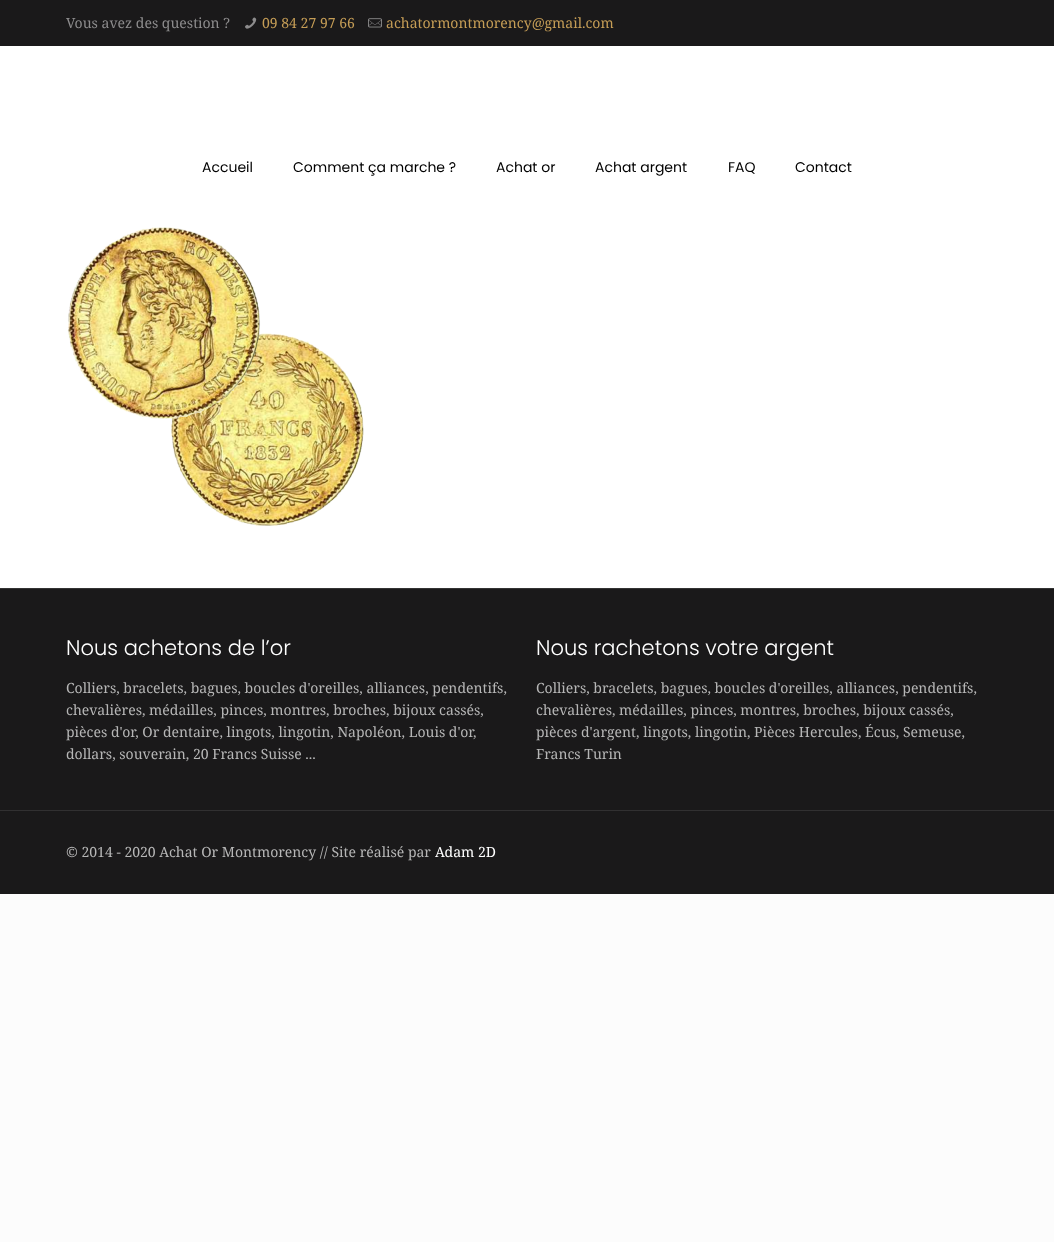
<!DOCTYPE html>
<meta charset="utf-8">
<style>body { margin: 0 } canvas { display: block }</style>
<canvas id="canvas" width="1054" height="1242"></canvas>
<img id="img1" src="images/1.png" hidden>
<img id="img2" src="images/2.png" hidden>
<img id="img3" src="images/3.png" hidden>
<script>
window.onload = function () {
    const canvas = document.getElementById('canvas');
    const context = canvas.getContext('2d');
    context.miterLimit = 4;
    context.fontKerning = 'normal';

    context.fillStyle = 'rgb(252, 252, 252)';
    context.fillRect(0, 0, 1054, 1242);
    context.fillStyle = 'rgb(255, 255, 255)';
    context.fillRect(0, 46, 1054, 542);
    context.fillStyle = 'rgb(26, 25, 26)';
    context.fillRect(0, 0, 1054, 46);
    context.drawImage(document.getElementById('img1'), 245, 17, 12, 12);
    context.drawImage(document.getElementById('img2'), 368, 18, 14, 10);
    context.drawImage(document.getElementById('img3'), 67, 227, 297, 299);
    context.fillRect(0, 589, 1054, 305);
    context.fillStyle = 'rgb(51, 51, 51)';
    context.fillRect(0, 588, 1054, 1);
    context.fillStyle = 'rgb(49, 48, 49)';
    context.fillRect(0, 810, 1054, 1);
    context.font = '14px Noto Serif';
    context.fillStyle = 'rgb(141, 140, 141)';
    context.fillText('Vous avez des question ?', 66, 28);
    context.fillStyle = 'rgb(197, 157, 86)';
    context.fillText('09 84 27 97 66', 262, 28);
    context.fillText('achatormontmorency@gmail.com', 386, 28);
    context.font = '14px Poppins';
    context.fillStyle = 'rgb(0, 0, 0)';
    context.fillText('Accueil', 202, 172);
    context.fillText('Comment ça marche ?', 293, 172);
    context.fillText('Achat or', 496, 172);
    context.fillText('Achat argent', 595, 172);
    context.fillText('FAQ', 728, 172);
    context.fillText('Contact', 795, 172);
    context.font = '300 21px Poppins';
    context.fillStyle = 'rgb(255, 255, 255)';
    context.fillText('Nous achetons de l’or', 66, 655);
    context.font = '14px Noto Serif';
    context.fillStyle = 'rgb(182, 182, 182)';
    context.fillText('Colliers, bracelets, bagues, boucles d\'oreilles, alliances, pendentifs,', 66, 693);
    context.fillText('chevalières, médailles, pinces, montres, broches, bijoux cassés,', 66, 715);
    context.fillText('pièces d\'or, Or dentaire, lingots, lingotin, Napoléon, Louis d\'or,', 66, 737);
    context.fillText('dollars, souverain, 20 Francs Suisse ...', 66, 759);
    context.font = '300 21px Poppins';
    context.fillStyle = 'rgb(255, 255, 255)';
    context.fillText('Nous rachetons votre argent', 536, 655);
    context.font = '14px Noto Serif';
    context.fillStyle = 'rgb(182, 182, 182)';
    context.fillText('Colliers, bracelets, bagues, boucles d\'oreilles, alliances, pendentifs,', 536, 693);
    context.fillText('chevalières, médailles, pinces, montres, broches, bijoux cassés,', 536, 715);
    context.fillText('pièces d\'argent, lingots, lingotin, Pièces Hercules, Écus, Semeuse,', 536, 737);
    context.fillText('Francs Turin', 536, 759);
    context.fillText('© 2014 - 2020 Achat Or Montmorency // Site réalisé par', 66, 857);
    context.fillStyle = 'rgb(255, 255, 255)';
    context.fillText('Adam 2D', 435, 857);
};
</script>
